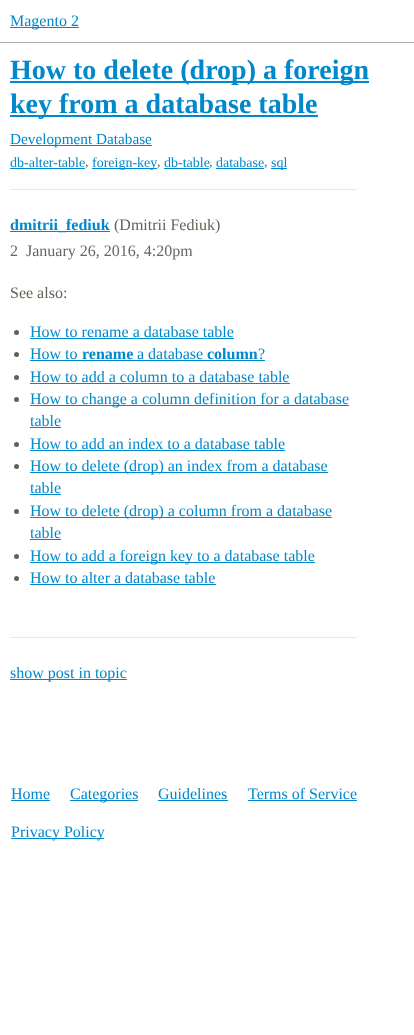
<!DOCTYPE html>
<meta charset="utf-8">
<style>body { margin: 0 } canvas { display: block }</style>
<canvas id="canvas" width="414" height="1035"></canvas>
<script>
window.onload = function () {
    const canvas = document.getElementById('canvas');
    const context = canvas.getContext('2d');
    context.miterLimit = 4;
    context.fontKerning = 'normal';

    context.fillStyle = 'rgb(255, 255, 255)';
    context.fillRect(0, 0, 414, 1035);
    context.fillStyle = 'rgb(175, 175, 175)';
    context.fillRect(0, 42, 414, 1);
    context.fillStyle = 'rgb(0, 136, 204)';
    context.fillRect(10, 27, 69, 1);
    context.fillRect(10, 81, 359, 2);
    context.fillRect(10, 115, 308, 2);
    context.fillRect(10, 145, 82, 1);
    context.fillRect(92, 145, 60, 1);
    context.fillRect(10, 168, 75, 1);
    context.fillRect(92, 168, 65, 1);
    context.fillRect(164, 168, 45, 1);
    context.fillRect(216, 168, 48, 1);
    context.fillRect(271, 168, 16, 1);
    context.fillStyle = 'rgb(233, 233, 233)';
    context.fillRect(10, 189, 347, 1);
    context.fillStyle = 'rgb(0, 136, 204)';
    context.fillRect(10, 231, 100, 1);
    context.fillStyle = 'rgb(103, 96, 86)';
    context.beginPath();
    context.arc(16.5, 332.5, 2.5, 0, 2 * Math.PI);
    context.fill();
    context.fillStyle = 'rgb(0, 136, 204)';
    context.fillRect(30, 338, 204, 1);
    context.fillStyle = 'rgb(103, 96, 86)';
    context.beginPath();
    context.arc(16.5, 354.5, 2.5, 0, 2 * Math.PI);
    context.fill();
    context.fillStyle = 'rgb(0, 136, 204)';
    context.fillRect(30, 360, 235, 1);
    context.fillStyle = 'rgb(103, 96, 86)';
    context.beginPath();
    context.arc(16.5, 377.5, 2.5, 0, 2 * Math.PI);
    context.fill();
    context.fillStyle = 'rgb(0, 136, 204)';
    context.fillRect(30, 383, 260, 1);
    context.fillStyle = 'rgb(103, 96, 86)';
    context.beginPath();
    context.arc(16.5, 399.5, 2.5, 0, 2 * Math.PI);
    context.fill();
    context.fillStyle = 'rgb(0, 136, 204)';
    context.fillRect(30, 405, 319, 1);
    context.fillRect(30, 427, 31, 1);
    context.fillStyle = 'rgb(103, 96, 86)';
    context.beginPath();
    context.arc(16.5, 444.5, 2.5, 0, 2 * Math.PI);
    context.fill();
    context.fillStyle = 'rgb(0, 136, 204)';
    context.fillRect(30, 450, 255, 1);
    context.fillStyle = 'rgb(103, 96, 86)';
    context.beginPath();
    context.arc(16.5, 466.5, 2.5, 0, 2 * Math.PI);
    context.fill();
    context.fillStyle = 'rgb(0, 136, 204)';
    context.fillRect(30, 472, 298, 1);
    context.fillRect(30, 494, 31, 1);
    context.fillStyle = 'rgb(103, 96, 86)';
    context.beginPath();
    context.arc(16.5, 511.5, 2.5, 0, 2 * Math.PI);
    context.fill();
    context.fillStyle = 'rgb(0, 136, 204)';
    context.fillRect(30, 517, 302, 1);
    context.fillRect(30, 539, 31, 1);
    context.fillStyle = 'rgb(103, 96, 86)';
    context.beginPath();
    context.arc(16.5, 556.5, 2.5, 0, 2 * Math.PI);
    context.fill();
    context.fillStyle = 'rgb(0, 136, 204)';
    context.fillRect(30, 562, 285, 1);
    context.fillStyle = 'rgb(103, 96, 86)';
    context.beginPath();
    context.arc(16.5, 578.5, 2.5, 0, 2 * Math.PI);
    context.fill();
    context.fillStyle = 'rgb(0, 136, 204)';
    context.fillRect(30, 584, 186, 1);
    context.fillStyle = 'rgb(233, 233, 233)';
    context.fillRect(10, 637, 347, 1);
    context.fillStyle = 'rgb(0, 136, 204)';
    context.fillRect(10, 679, 117, 1);
    context.fillRect(11, 800, 39, 1);
    context.fillRect(70, 800, 68, 1);
    context.fillRect(158, 800, 70, 1);
    context.fillRect(248, 800, 109, 1);
    context.fillRect(11, 838, 93, 1);
    context.font = '16px Liberation Serif';
    context.fillText('Magento 2', 10, 26);
    context.font = 'bold 28px Liberation Serif';
    context.fillText('How to delete (drop) a foreign', 10, 79);
    context.fillText('key from a database table', 10, 113);
    context.font = '15.25px Liberation Serif';
    context.fillText('Development Database', 10, 144);
    context.font = '14px Liberation Serif';
    context.fillText('db-alter-table', 10, 167);
    context.fillStyle = 'rgb(103, 96, 86)';
    context.fillText(',', 85, 166);
    context.fillStyle = 'rgb(0, 136, 204)';
    context.fillText('foreign-key', 92, 167);
    context.fillStyle = 'rgb(103, 96, 86)';
    context.fillText(',', 157, 166);
    context.fillStyle = 'rgb(0, 136, 204)';
    context.fillText('db-table', 164, 167);
    context.fillStyle = 'rgb(103, 96, 86)';
    context.fillText(',', 209, 166);
    context.fillStyle = 'rgb(0, 136, 204)';
    context.fillText('database', 216, 167);
    context.fillStyle = 'rgb(103, 96, 86)';
    context.fillText(',', 264, 166);
    context.fillStyle = 'rgb(0, 136, 204)';
    context.fillText('sql', 271, 167);
    context.font = 'bold 16px Liberation Serif';
    context.fillText('dmitrii_fediuk', 10, 230);
    context.font = '16px Liberation Serif';
    context.fillStyle = 'rgb(103, 96, 86)';
    context.fillText('(Dmitrii Fediuk)', 114, 230);
    context.fillStyle = 'rgb(102, 102, 102)';
    context.fillText('2', 10, 256);
    context.fillText('January 26, 2016, 4:20pm', 26, 256);
    context.fillStyle = 'rgb(103, 96, 86)';
    context.fillText('See also:', 10, 298);
    context.fillStyle = 'rgb(0, 136, 204)';
    context.fillText('How to rename a database table', 30, 337);
    context.fillText('How to', 30, 359);
    context.font = 'bold 16px Liberation Serif';
    context.fillText('rename', 82, 359);
    context.font = '16px Liberation Serif';
    context.fillText('a database', 137, 359);
    context.font = 'bold 16px Liberation Serif';
    context.fillText('column', 207, 359);
    context.font = '16px Liberation Serif';
    context.fillText('?', 258, 359);
    context.fillText('How to add a column to a database table', 30, 382);
    context.fillText('How to change a column definition for a database', 30, 404);
    context.fillText('table', 30, 426);
    context.fillText('How to add an index to a database table', 30, 449);
    context.fillText('How to delete (drop) an index from a database', 30, 471);
    context.fillText('table', 30, 493);
    context.fillText('How to delete (drop) a column from a database', 30, 516);
    context.fillText('table', 30, 538);
    context.fillText('How to add a foreign key to a database table', 30, 561);
    context.fillText('How to alter a database table', 30, 583);
    context.fillText('show post in topic', 10, 678);
    context.fillText('Home', 11, 799);
    context.fillText('Categories', 70, 799);
    context.fillText('Guidelines', 158, 799);
    context.fillText('Terms of Service', 248, 799);
    context.fillText('Privacy Policy', 11, 837);
};
</script>
